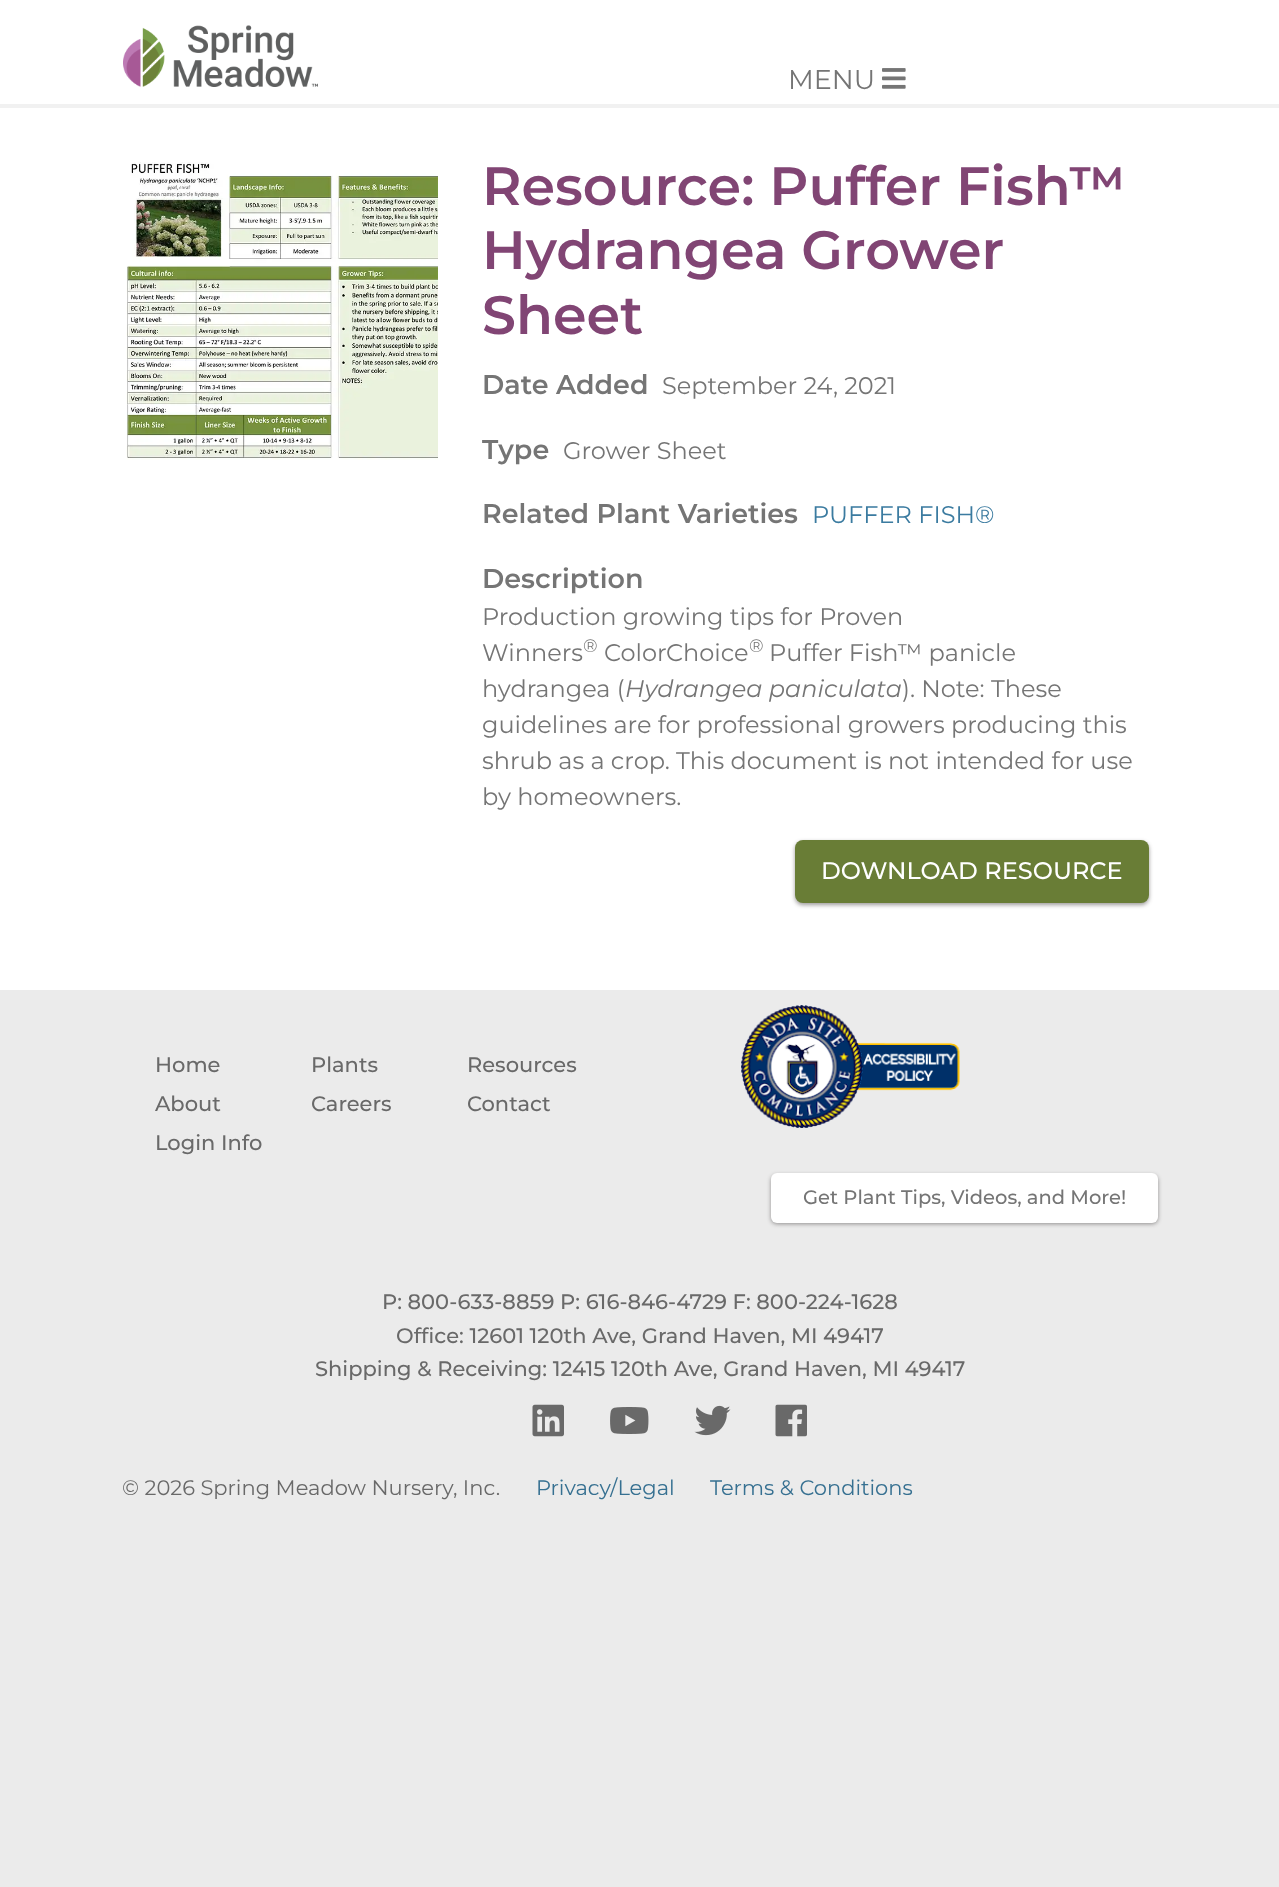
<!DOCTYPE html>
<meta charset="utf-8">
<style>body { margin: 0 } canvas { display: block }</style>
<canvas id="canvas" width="1279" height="1887"></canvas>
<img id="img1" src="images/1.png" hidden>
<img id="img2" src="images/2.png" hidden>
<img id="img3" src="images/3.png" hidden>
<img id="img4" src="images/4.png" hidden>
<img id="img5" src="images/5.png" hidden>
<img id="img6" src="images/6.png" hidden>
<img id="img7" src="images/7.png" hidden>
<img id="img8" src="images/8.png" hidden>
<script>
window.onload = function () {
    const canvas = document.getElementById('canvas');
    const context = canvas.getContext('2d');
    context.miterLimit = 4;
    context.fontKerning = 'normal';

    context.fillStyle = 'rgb(235, 235, 235)';
    context.fillRect(0, 0, 1279, 1887);
    context.fillStyle = 'rgb(255, 255, 255)';
    context.fillRect(0, 0, 1279, 104);
    context.fillStyle = 'rgb(241, 241, 241)';
    context.fillRect(0, 104, 1279, 4);
    context.drawImage(document.getElementById('img1'), 123, 25, 195, 62);
    context.drawImage(document.getElementById('img2'), 882, 68, 24, 21);
    context.fillStyle = 'rgb(255, 255, 255)';
    context.fillRect(0, 108, 1279, 882);
    context.drawImage(document.getElementById('img3'), 126, 162, 312, 298);
    context.fillStyle = 'rgba(35, 31, 32, 0.45)';
    context.filter = 'blur(2px)';
    context.beginPath();
    context.roundRect(795, 842, 354, 63, 8);
    context.fill();
    context.filter = 'none';
    context.fillStyle = 'rgb(105, 125, 54)';
    context.beginPath();
    context.roundRect(795, 840, 354, 63, 8);
    context.fill();
    context.drawImage(document.getElementById('img4'), 741, 1005, 219, 123);
    context.fillStyle = 'rgba(35, 31, 32, 0.45)';
    context.filter = 'blur(2px)';
    context.beginPath();
    context.roundRect(771, 1175, 387, 49, 6);
    context.fill();
    context.filter = 'none';
    context.fillStyle = 'rgb(255, 255, 255)';
    context.beginPath();
    context.roundRect(771, 1173, 387, 50, 6);
    context.fill();
    context.drawImage(document.getElementById('img5'), 532, 1404, 32, 33);
    context.drawImage(document.getElementById('img6'), 610, 1407, 39, 27);
    context.drawImage(document.getElementById('img7'), 694, 1405, 37, 31);
    context.drawImage(document.getElementById('img8'), 775, 1404, 32, 33);
    context.font = '100 27px Montserrat';
    context.fillStyle = 'rgb(117, 117, 117)';
    context.fillText('MENU', 788, 89);
    context.font = '100 54px "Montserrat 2"';
    context.fillStyle = 'rgb(129, 69, 116)';
    context.fillText('Resource: Puffer Fish™', 482, 205);
    context.fillText('Hydrangea Grower', 482, 269);
    context.fillText('Sheet', 482, 334);
    context.font = '100 27px "Montserrat 2"';
    context.fillStyle = 'rgb(117, 117, 117)';
    context.fillText('Date Added', 482, 394);
    context.font = '100 24px Montserrat';
    context.fillText('September 24, 2021', 662, 394);
    context.font = '100 27px "Montserrat 2"';
    context.fillText('Type', 482, 459);
    context.font = '100 24px Montserrat';
    context.fillText('Grower Sheet', 563, 459);
    context.font = '100 27px "Montserrat 2"';
    context.fillText('Related Plant Varieties', 482, 523);
    context.font = '100 24px Montserrat';
    context.fillStyle = 'rgb(59, 123, 160)';
    context.fillText('PUFFER FISH®', 812, 523);
    context.font = '100 27px "Montserrat 2"';
    context.fillStyle = 'rgb(117, 117, 117)';
    context.fillText('Description', 482, 588);
    context.font = '100 24px Montserrat';
    context.fillText('Production growing tips for Proven', 482, 625);
    context.fillText('Winners', 482, 661);
    context.font = '100 18px Montserrat';
    context.fillText('®', 583, 652);
    context.font = '100 24px Montserrat';
    context.fillText('ColorChoice', 604, 661);
    context.font = '100 18px Montserrat';
    context.fillText('®', 749, 652);
    context.font = '100 24px Montserrat';
    context.fillText('Puffer Fish™ panicle', 769, 661);
    context.fillText('hydrangea (', 482, 697);
    context.font = 'italic 100 24px Montserrat';
    context.fillText('Hydrangea paniculata', 625, 697);
    context.font = '100 24px Montserrat';
    context.fillText('). Note: These', 902, 697);
    context.fillText('guidelines are for professional growers producing this', 482, 733);
    context.fillText('shrub as a crop. This document is not intended for use', 482, 769);
    context.fillText('by homeowners.', 482, 805);
    context.font = '100 24px "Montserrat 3"';
    context.fillStyle = 'rgb(255, 255, 255)';
    context.fillText('DOWNLOAD RESOURCE', 821, 879);
    context.font = '100 21px "Montserrat 3"';
    context.fillStyle = 'rgb(105, 105, 105)';
    context.fillText('Home', 155, 1072);
    context.fillText('Plants', 311, 1072);
    context.fillText('Resources', 467, 1072);
    context.fillText('About', 155, 1111);
    context.fillText('Careers', 311, 1111);
    context.fillText('Contact', 467, 1111);
    context.fillText('Login Info', 155, 1150);
    context.font = '100 19.5px "Montserrat 3"';
    context.fillStyle = 'rgb(117, 117, 117)';
    context.fillText('Get Plant Tips, Videos, and More!', 803, 1204);
    context.font = '100 21px "Montserrat 3"';
    context.fillStyle = 'rgb(105, 105, 105)';
    context.fillText('P: 800-633-8859 P: 616-846-4729 F: 800-224-1628', 382, 1309);
    context.fillText('Office: 12601 120th Ave, Grand Haven, MI 49417', 396, 1343);
    context.fillText('Shipping & Receiving: 12415 120th Ave, Grand Haven, MI 49417', 315, 1376);
    context.font = '100 21px Montserrat';
    context.fillText('© 2026 Spring Meadow Nursery, Inc.', 122, 1495);
    context.fillStyle = 'rgb(54, 112, 145)';
    context.fillText('Privacy/Legal', 536, 1495);
    context.fillText('Terms & Conditions', 710, 1495);
};
</script>
